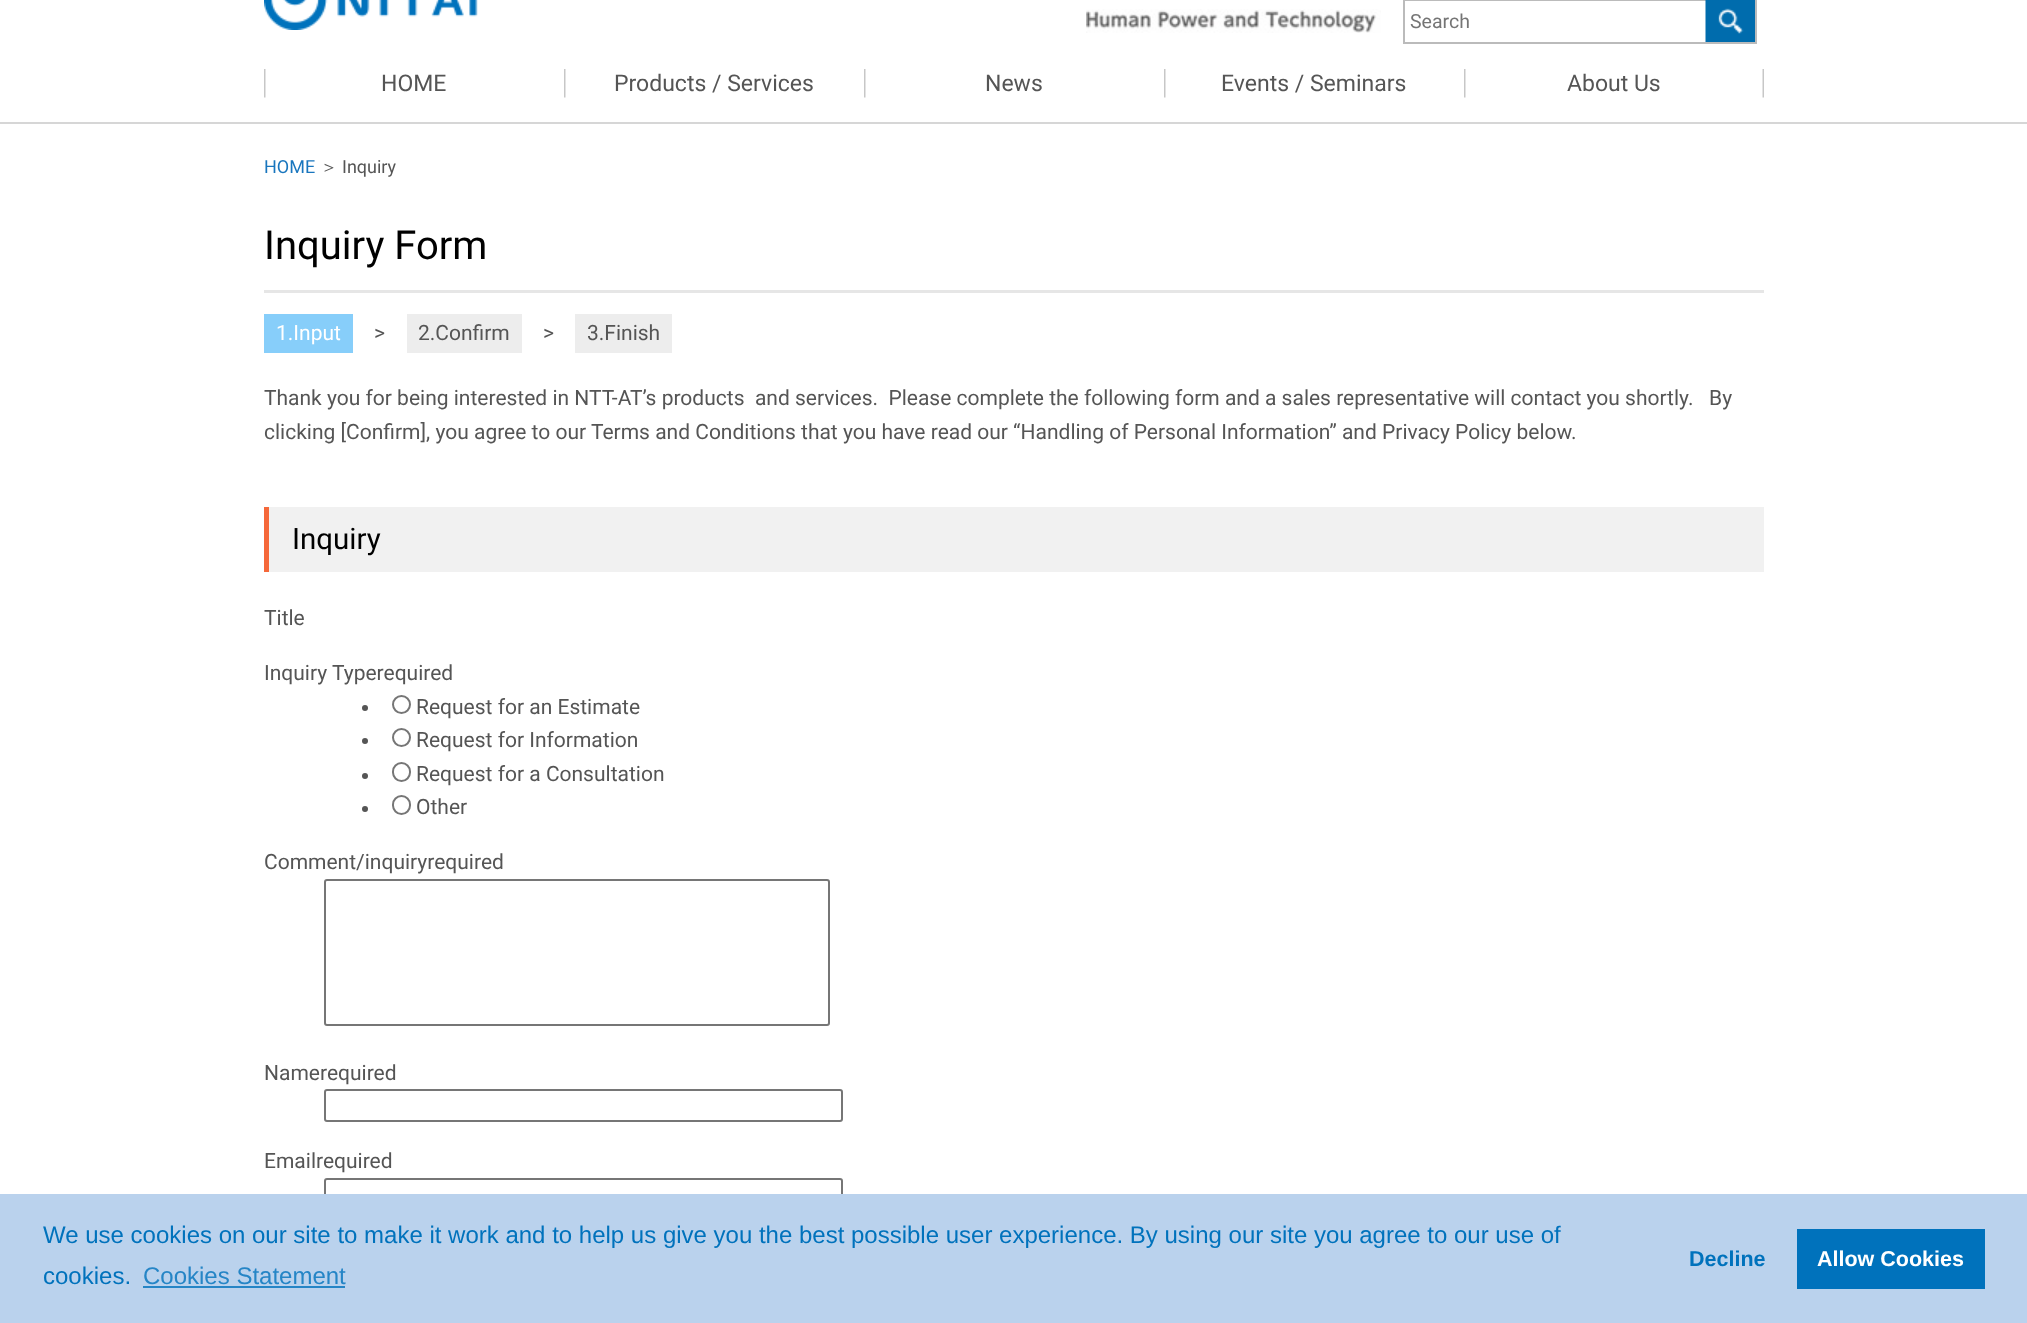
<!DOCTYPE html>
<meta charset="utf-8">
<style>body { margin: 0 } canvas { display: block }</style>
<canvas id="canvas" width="2027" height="1323"></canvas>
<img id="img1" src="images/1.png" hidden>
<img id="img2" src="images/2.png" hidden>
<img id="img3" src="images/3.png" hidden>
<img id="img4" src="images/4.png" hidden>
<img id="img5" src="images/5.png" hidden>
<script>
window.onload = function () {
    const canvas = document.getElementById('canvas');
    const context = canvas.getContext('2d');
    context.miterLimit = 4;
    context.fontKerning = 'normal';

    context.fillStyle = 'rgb(255, 255, 255)';
    context.fillRect(0, 0, 2027, 1323);
    context.fillStyle = 'rgb(214, 214, 214)';
    context.fillRect(0, 122, 2027, 2);
    context.drawImage(document.getElementById('img1'), 264, 0, 214, 30);
    context.drawImage(document.getElementById('img2'), 1086, 9, 295, 24);
    context.fillStyle = 'rgb(187, 187, 187)';
    context.fillRect(1403, 0, 303, 1);
    context.fillRect(1403, 42, 303, 2);
    context.fillRect(1403, 0, 2, 44);
    context.fillRect(1755, 0, 2, 44);
    context.fillRect(1706, 42, 51, 2);
    context.drawImage(document.getElementById('img3'), 1705, 0, 50, 42);
    context.drawImage(document.getElementById('img4'), 1762, 69, 2, 29);
    context.drawImage(document.getElementById('img5'), 264, 69, 2, 29);
    context.drawImage(document.getElementById('img5'), 564, 69, 2, 29);
    context.drawImage(document.getElementById('img5'), 864, 69, 2, 29);
    context.drawImage(document.getElementById('img5'), 1164, 69, 2, 29);
    context.drawImage(document.getElementById('img5'), 1464, 69, 2, 29);
    context.fillStyle = 'rgb(230, 230, 230)';
    context.fillRect(264, 290, 1500, 3);
    context.fillStyle = 'rgb(135, 206, 250)';
    context.fillRect(264, 314, 89, 39);
    context.fillStyle = 'rgb(237, 237, 237)';
    context.fillRect(407, 314, 115, 39);
    context.fillRect(575, 314, 97, 39);
    context.fillStyle = 'rgb(241, 241, 241)';
    context.fillRect(269, 507, 1495, 65);
    context.fillStyle = 'rgb(245, 104, 58)';
    context.fillRect(264, 507, 5, 65);
    context.fillStyle = 'rgb(85, 85, 85)';
    context.beginPath();
    context.arc(365, 708, 3, 0, 2 * Math.PI);
    context.fill();
    context.beginPath();
    context.arc(401.5, 704.5, 8.5, 0, 2 * Math.PI);
    context.strokeStyle = 'rgb(118, 118, 118)';
    context.lineWidth = 2;
    context.stroke();
    context.beginPath();
    context.arc(365, 741, 3, 0, 2 * Math.PI);
    context.fill();
    context.beginPath();
    context.arc(401.5, 737.5, 8.5, 0, 2 * Math.PI);
    context.stroke();
    context.beginPath();
    context.arc(365, 776, 3, 0, 2 * Math.PI);
    context.fill();
    context.beginPath();
    context.roundRect(393, 763, 17, 18, 8.5);
    context.stroke();
    context.beginPath();
    context.arc(365, 809, 3, 0, 2 * Math.PI);
    context.fill();
    context.beginPath();
    context.roundRect(393, 796, 17, 18, 8.5);
    context.stroke();
    context.beginPath();
    context.roundRect(325, 880, 504, 145, 2);
    context.stroke();
    context.beginPath();
    context.roundRect(325, 1090, 517, 31, 2);
    context.stroke();
    context.beginPath();
    context.roundRect(325, 1179, 517, 31, 2);
    context.stroke();
    context.fillStyle = 'rgb(186, 210, 237)';
    context.fillRect(0, 1194, 2027, 129);
    context.fillStyle = 'rgb(37, 133, 198)';
    context.fillRect(143, 1286, 202, 2);
    context.fillStyle = 'rgb(0, 114, 188)';
    context.fillRect(1797, 1229, 188, 60);
    context.font = '19.5px Roboto';
    context.fillStyle = 'rgb(117, 117, 117)';
    context.fillText('Search', 1410, 28);
    context.font = '23px Roboto';
    context.fillStyle = 'rgb(85, 85, 85)';
    context.fillText('HOME', 381, 91);
    context.fillText('Products / Services', 614, 91);
    context.fillText('News', 985, 91);
    context.fillText('Events / Seminars', 1221, 91);
    context.fillText('About Us', 1567, 91);
    context.font = '18px Roboto';
    context.fillStyle = 'rgb(25, 118, 190)';
    context.fillText('HOME', 264, 173);
    context.font = '500 18px WenQuanYi Zen Hei';
    context.fillStyle = 'rgb(85, 85, 85)';
    context.fillText('＞', 320, 173);
    context.font = '18px Roboto';
    context.fillText('Inquiry', 342, 173);
    context.font = '40px Roboto';
    context.fillStyle = 'rgb(0, 0, 0)';
    context.fillText('Inquiry Form', 264, 259);
    context.font = '21px Roboto';
    context.fillStyle = 'rgb(255, 255, 255)';
    context.fillText('1.Input', 276, 340);
    context.fillStyle = 'rgb(85, 85, 85)';
    context.fillText('>', 374, 340);
    context.fillText('2.Confirm', 418, 340);
    context.fillText('>', 543, 340);
    context.fillText('3.Finish', 587, 340);
    context.fillText('Thank you for being interested in NTT-AT’s products  and services.  Please complete the following form and a sales representative will contact you shortly.   By', 264, 405);
    context.fillText('clicking [Confirm], you agree to our Terms and Conditions that you have read our “Handling of Personal Information” and Privacy Policy below.', 264, 439);
    context.font = '29.5px Roboto';
    context.fillStyle = 'rgb(0, 0, 0)';
    context.fillText('Inquiry', 292, 549);
    context.font = '21px Roboto';
    context.fillStyle = 'rgb(85, 85, 85)';
    context.fillText('Title', 264, 625);
    context.fillText('Inquiry Typerequired', 264, 680);
    context.fillText('Request for an Estimate', 416, 714);
    context.fillText('Request for Information', 416, 747);
    context.fillText('Request for a Consultation', 416, 781);
    context.fillText('Other', 416, 814);
    context.fillText('Comment/inquiryrequired', 264, 869);
    context.fillText('Namerequired', 264, 1080);
    context.fillText('Emailrequired', 264, 1168);
    context.font = '24px Liberation Sans';
    context.fillStyle = 'rgb(0, 114, 188)';
    context.fillText('We use cookies on our site to make it work and to help us give you the best possible user experience. By using our site you agree to our use of', 43, 1243);
    context.fillText('cookies.', 43, 1284);
    context.fillStyle = 'rgb(37, 133, 198)';
    context.fillText('Cookies Statement', 143, 1284);
    context.font = 'bold 21.5px Liberation Sans';
    context.fillStyle = 'rgb(0, 114, 188)';
    context.fillText('Decline', 1689, 1266);
    context.fillStyle = 'rgb(255, 255, 255)';
    context.fillText('Allow Cookies', 1817, 1266);
};
</script>
